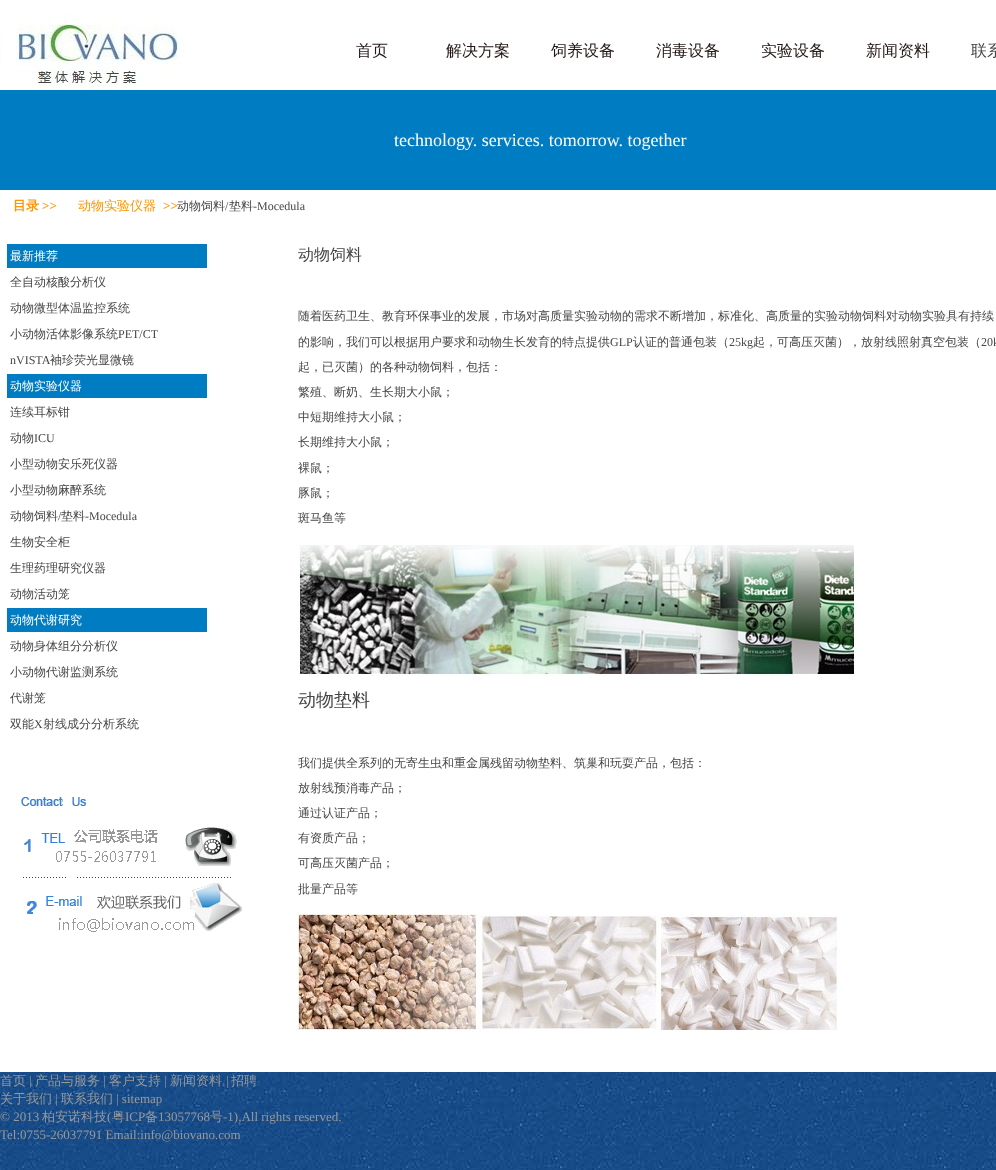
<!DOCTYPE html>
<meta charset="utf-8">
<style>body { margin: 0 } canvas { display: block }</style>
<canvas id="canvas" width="996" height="1170"></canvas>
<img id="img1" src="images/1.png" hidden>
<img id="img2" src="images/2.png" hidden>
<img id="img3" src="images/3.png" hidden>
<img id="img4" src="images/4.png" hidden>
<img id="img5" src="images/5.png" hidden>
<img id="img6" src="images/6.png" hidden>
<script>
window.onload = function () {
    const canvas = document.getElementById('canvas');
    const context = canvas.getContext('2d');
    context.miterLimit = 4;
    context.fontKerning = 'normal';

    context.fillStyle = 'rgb(255, 255, 255)';
    context.fillRect(0, 0, 996, 1170);
    context.drawImage(document.getElementById('img1'), 0, 1072, 996, 98);
    context.drawImage(document.getElementById('img2'), 0, 11, 188, 79);
    context.fillStyle = 'rgb(0, 124, 194)';
    context.fillRect(0, 90, 996, 100);
    context.fillRect(7, 244, 200, 24);
    context.fillRect(7, 374, 200, 24);
    context.fillRect(7, 608, 200, 24);
    context.drawImage(document.getElementById('img3'), 21, 797, 216, 81);
    context.drawImage(document.getElementById('img4'), 27, 883, 215, 49);
    context.drawImage(document.getElementById('img5'), 298, 545, 558, 131);
    context.drawImage(document.getElementById('img6'), 298, 914, 543, 116);
    context.font = '500 16px WenQuanYi Zen Hei';
    context.fillStyle = 'rgb(35, 24, 22)';
    context.fillText('首页', 356, 56);
    context.fillText('解决方案', 446, 56);
    context.fillText('饲养设备', 551, 56);
    context.fillText('消毒设备', 656, 56);
    context.fillText('实验设备', 761, 56);
    context.fillText('新闻资料', 866, 56);
    context.fillStyle = 'rgb(70, 70, 70)';
    context.fillText('联系', 971, 56);
    context.font = '18px Liberation Serif';
    context.fillStyle = 'rgb(255, 255, 255)';
    context.fillText('technology. services. tomorrow. together', 394, 146);
    context.font = 'bold 13px WenQuanYi Zen Hei';
    context.fillStyle = 'rgb(255, 149, 0)';
    context.fillText('目录', 13, 210);
    context.font = 'bold 13px Liberation Serif';
    context.fillText('>>', 42, 210);
    context.font = '500 13px WenQuanYi Zen Hei';
    context.fillText('动物实验仪器', 78, 210);
    context.font = 'bold 13px Liberation Serif';
    context.fillText('>>', 163, 210);
    context.font = '500 12px WenQuanYi Zen Hei';
    context.fillStyle = 'rgb(70, 70, 70)';
    context.fillText('动物饲料', 177, 210);
    context.font = '12px Liberation Serif';
    context.fillText('/', 225, 210);
    context.font = '500 12px WenQuanYi Zen Hei';
    context.fillText('垫料', 229, 210);
    context.font = '12px Liberation Serif';
    context.fillText('-Mocedula', 253, 210);
    context.font = '500 12px WenQuanYi Zen Hei';
    context.fillStyle = 'rgb(255, 255, 255)';
    context.fillText('最新推荐', 10, 260);
    context.fillStyle = 'rgb(70, 70, 70)';
    context.fillText('全自动核酸分析仪', 10, 286);
    context.fillText('动物微型体温监控系统', 10, 312);
    context.fillText('小动物活体影像系统', 10, 338);
    context.font = '12px Liberation Serif';
    context.fillText('PET/CT', 118, 338);
    context.fillText('nVISTA', 10, 364);
    context.font = '500 12px WenQuanYi Zen Hei';
    context.fillText('袖珍荧光显微镜', 50, 364);
    context.fillStyle = 'rgb(255, 255, 255)';
    context.fillText('动物实验仪器', 10, 390);
    context.fillStyle = 'rgb(70, 70, 70)';
    context.fillText('连续耳标钳', 10, 416);
    context.fillText('动物', 10, 442);
    context.font = '12px Liberation Serif';
    context.fillText('ICU', 34, 442);
    context.font = '500 12px WenQuanYi Zen Hei';
    context.fillText('小型动物安乐死仪器', 10, 468);
    context.fillText('小型动物麻醉系统', 10, 494);
    context.fillText('动物饲料', 10, 520);
    context.font = '12px Liberation Serif';
    context.fillText('/', 58, 520);
    context.font = '500 12px WenQuanYi Zen Hei';
    context.fillText('垫料', 61, 520);
    context.font = '12px Liberation Serif';
    context.fillText('-Mocedula', 85, 520);
    context.font = '500 12px WenQuanYi Zen Hei';
    context.fillText('生物安全柜', 10, 546);
    context.fillText('生理药理研究仪器', 10, 572);
    context.fillText('动物活动笼', 10, 598);
    context.fillStyle = 'rgb(255, 255, 255)';
    context.fillText('动物代谢研究', 10, 624);
    context.fillStyle = 'rgb(70, 70, 70)';
    context.fillText('动物身体组分分析仪', 10, 650);
    context.fillText('小动物代谢监测系统', 10, 676);
    context.fillText('代谢笼', 10, 702);
    context.fillText('双能', 10, 728);
    context.font = '12px Liberation Serif';
    context.fillText('X', 34, 728);
    context.font = '500 12px WenQuanYi Zen Hei';
    context.fillText('射线成分分析系统', 43, 728);
    context.font = '500 16px WenQuanYi Zen Hei';
    context.fillText('动物饲料', 298, 260);
    context.font = '500 12px WenQuanYi Zen Hei';
    context.fillText('随着医药卫生、教育环保事业的发展，市场对高质量实验动物的需求不断增加，标准化、高质量的实验动物饲料对动物实验具有持续', 298, 320);
    context.fillText('的影响，我们可以根据用户要求和动物生长发育的特点提供', 298, 346);
    context.font = '12px Liberation Serif';
    context.fillText('GLP', 610, 346);
    context.font = '500 12px WenQuanYi Zen Hei';
    context.fillText('认证的普通包装（', 633, 346);
    context.font = '12px Liberation Serif';
    context.fillText('25kg', 729, 346);
    context.font = '500 12px WenQuanYi Zen Hei';
    context.fillText('起，可高压灭菌），放射线照射真空包装（', 753, 346);
    context.font = '12px Liberation Serif';
    context.fillText('20k', 981, 346);
    context.font = '500 12px WenQuanYi Zen Hei';
    context.fillText('起，已灭菌）的各种动物饲料，包括：', 298, 371);
    context.fillText('繁殖、断奶、生长期大小鼠；', 298, 396);
    context.fillText('中短期维持大小鼠；', 298, 421);
    context.fillText('长期维持大小鼠；', 298, 446);
    context.fillText('裸鼠；', 298, 472);
    context.fillText('豚鼠；', 298, 497);
    context.fillText('斑马鱼等', 298, 522);
    context.font = '500 18px WenQuanYi Zen Hei';
    context.fillText('动物垫料', 298, 706);
    context.font = '500 12px WenQuanYi Zen Hei';
    context.fillText('我们提供全系列的无寄生虫和重金属残留动物垫料、筑巢和玩耍产品，包括：', 298, 767);
    context.fillText('放射线预消毒产品；', 298, 792);
    context.fillText('通过认证产品；', 298, 817);
    context.fillText('有资质产品；', 298, 842);
    context.fillText('可高压灭菌产品；', 298, 867);
    context.fillText('批量产品等', 298, 893);
    context.font = '500 13px WenQuanYi Zen Hei';
    context.fillStyle = 'rgb(153, 153, 153)';
    context.fillText('首页', 0, 1085);
    context.font = '13px Liberation Serif';
    context.fillText('|', 29, 1085);
    context.font = '500 13px WenQuanYi Zen Hei';
    context.fillText('产品与服务', 35, 1085);
    context.font = '13px Liberation Serif';
    context.fillText('|', 103, 1085);
    context.font = '500 13px WenQuanYi Zen Hei';
    context.fillText('客户支持', 109, 1085);
    context.font = '13px Liberation Serif';
    context.fillText('|', 164, 1085);
    context.font = '500 13px WenQuanYi Zen Hei';
    context.fillText('新闻资料', 170, 1085);
    context.font = '13px Liberation Serif';
    context.fillText('|', 226, 1085);
    context.font = '500 13px WenQuanYi Zen Hei';
    context.fillText('招聘', 231, 1085);
    context.fillText('关于我们', 0, 1103);
    context.font = '13px Liberation Serif';
    context.fillText('|', 55, 1103);
    context.font = '500 13px WenQuanYi Zen Hei';
    context.fillText('联系我们', 61, 1103);
    context.font = '13px Liberation Serif';
    context.fillText('| sitemap', 116, 1103);
    context.fillText('© 2013', 0, 1121);
    context.font = '500 13px WenQuanYi Zen Hei';
    context.fillText('柏安诺科技', 42, 1121);
    context.font = '13px Liberation Serif';
    context.fillText('(', 107, 1121);
    context.font = '500 13px WenQuanYi Zen Hei';
    context.fillText('粤', 112, 1121);
    context.font = '13px Liberation Serif';
    context.fillText('ICP', 125, 1121);
    context.font = '500 13px WenQuanYi Zen Hei';
    context.fillText('备', 145, 1121);
    context.font = '13px Liberation Serif';
    context.fillText('13057768', 158, 1121);
    context.font = '500 13px WenQuanYi Zen Hei';
    context.fillText('号', 210, 1121);
    context.font = '13px Liberation Serif';
    context.fillText('-1),All rights reserved.', 223, 1121);
    context.fillText('Tel:0755-26037791 Email:info@biovano.com', 0, 1139);
};
</script>
